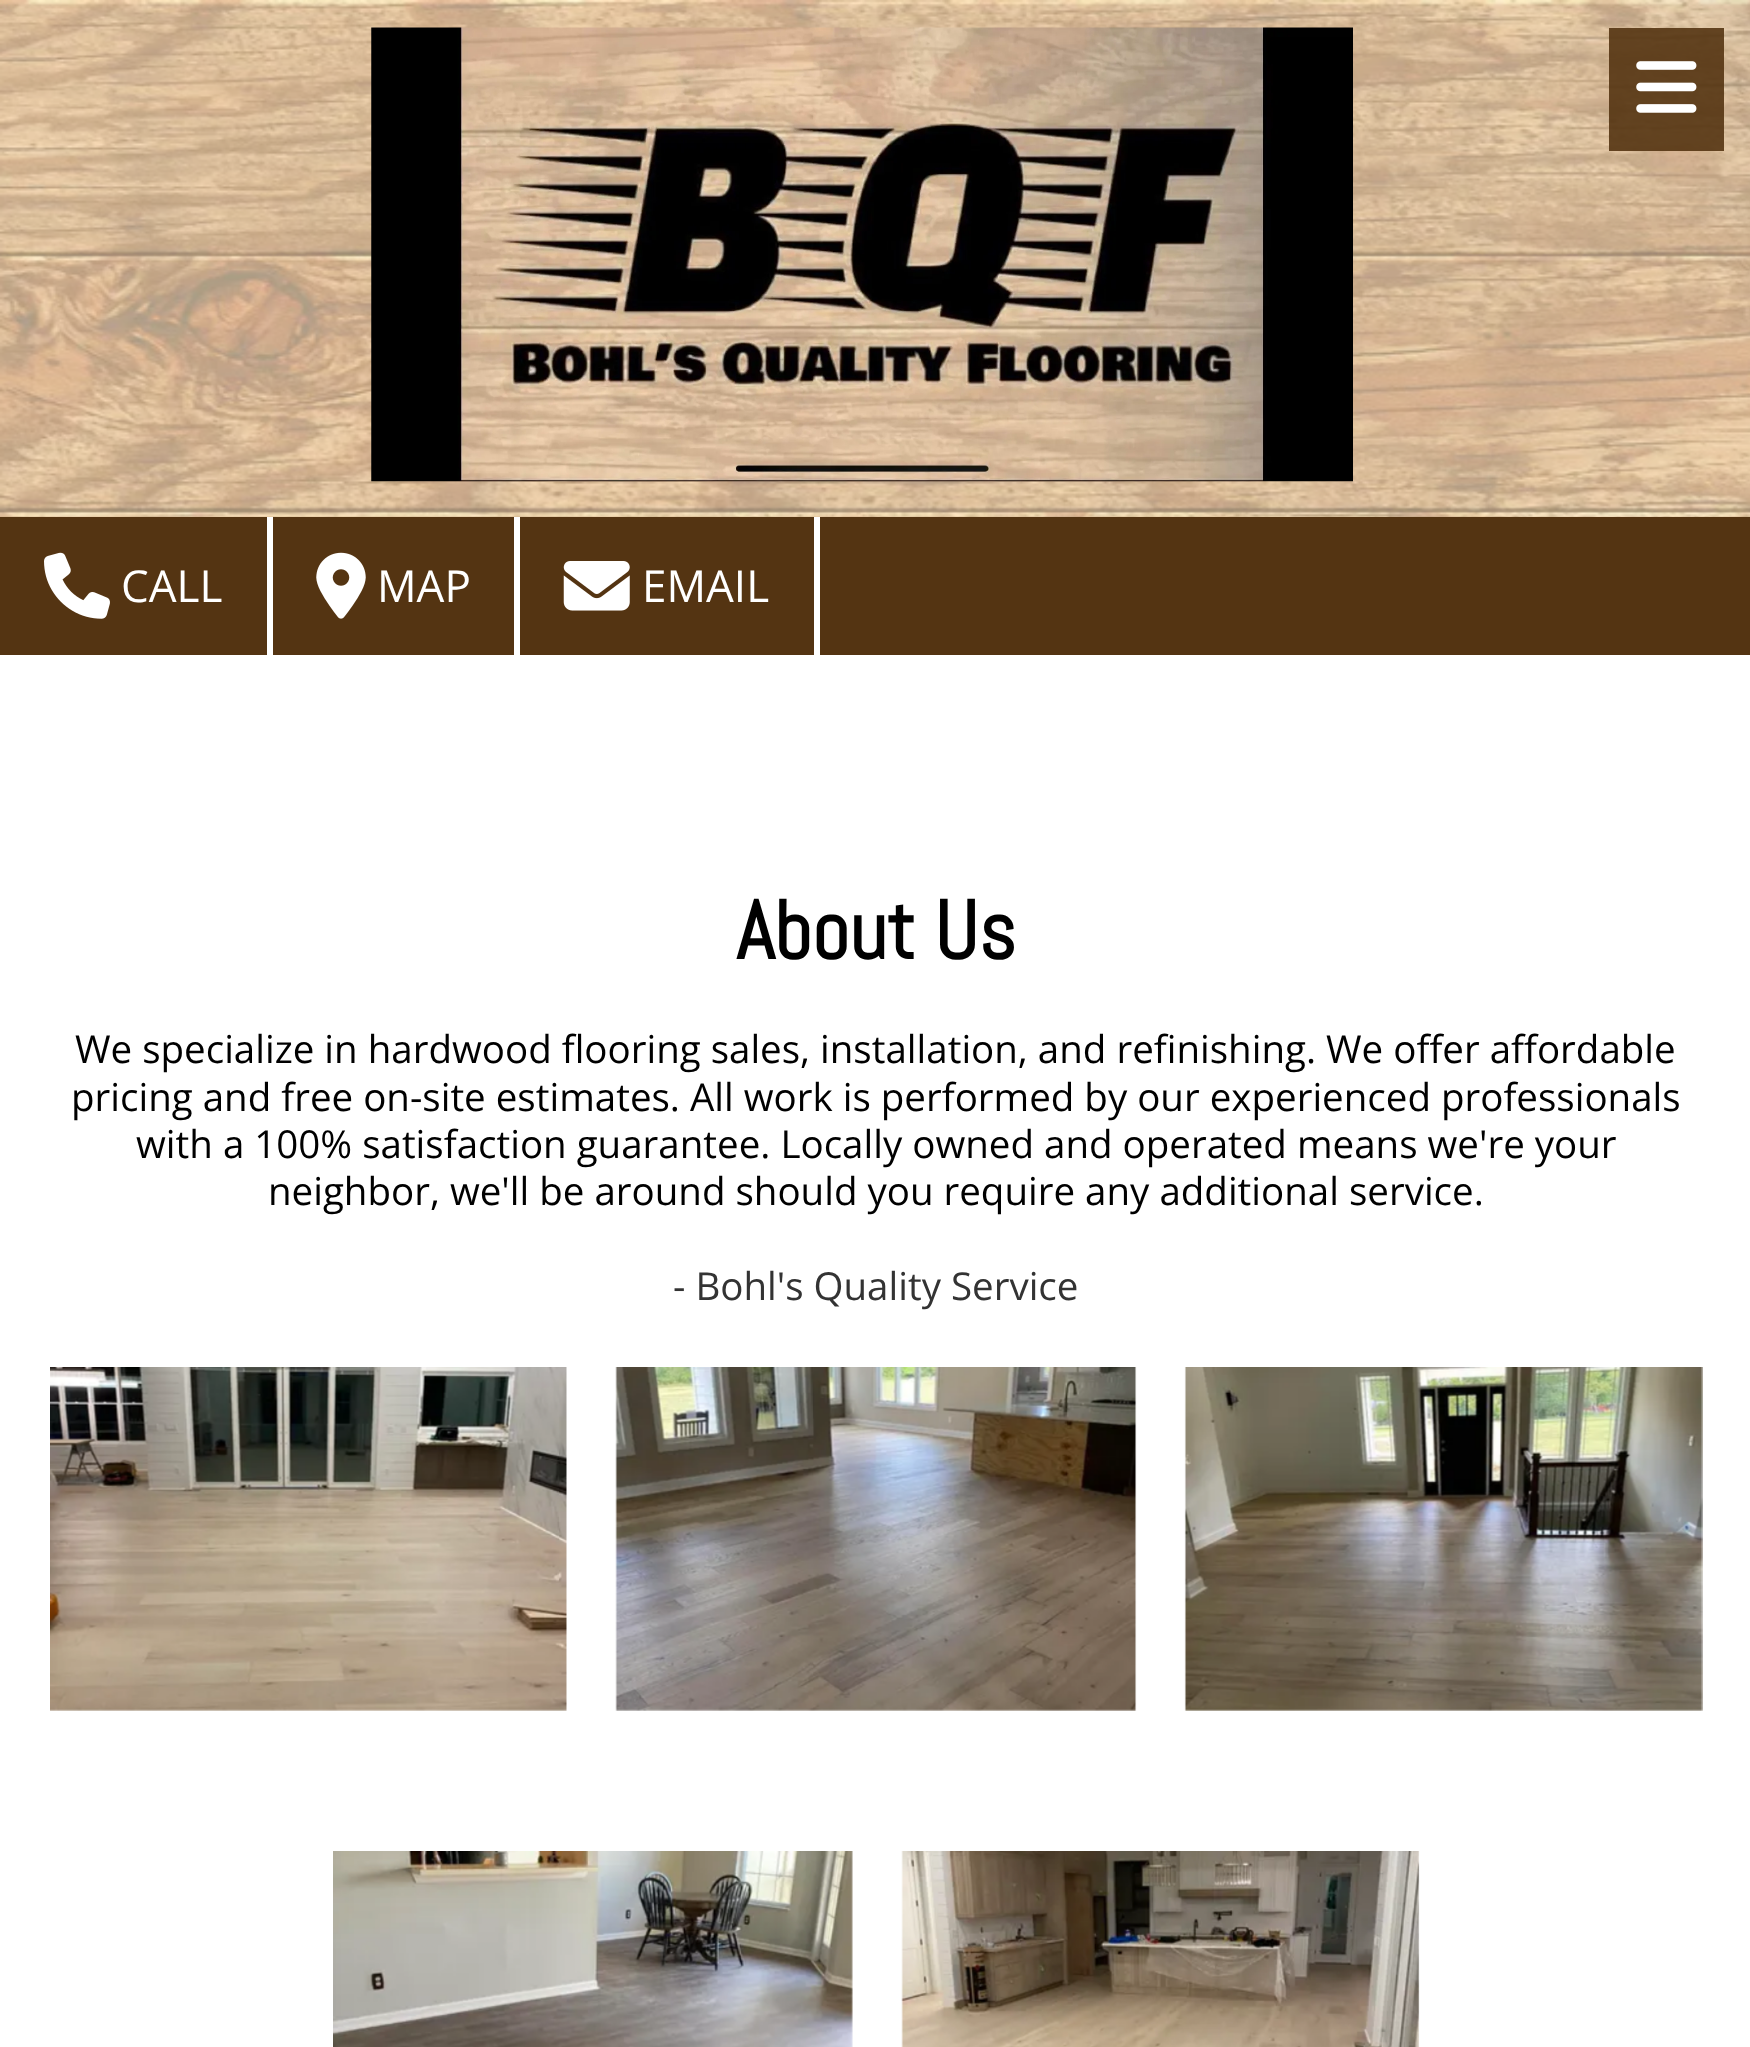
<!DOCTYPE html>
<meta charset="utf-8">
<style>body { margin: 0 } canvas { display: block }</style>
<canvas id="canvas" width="1750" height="2047"></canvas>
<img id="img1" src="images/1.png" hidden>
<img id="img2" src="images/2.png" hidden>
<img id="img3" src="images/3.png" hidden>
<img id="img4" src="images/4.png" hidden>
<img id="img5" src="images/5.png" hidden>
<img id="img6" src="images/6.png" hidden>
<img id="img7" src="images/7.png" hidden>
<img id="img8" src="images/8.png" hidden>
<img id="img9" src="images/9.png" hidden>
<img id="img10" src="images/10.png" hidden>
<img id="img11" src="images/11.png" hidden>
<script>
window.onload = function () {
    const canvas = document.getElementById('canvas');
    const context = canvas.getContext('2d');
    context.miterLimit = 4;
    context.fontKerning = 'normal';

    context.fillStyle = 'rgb(255, 255, 255)';
    context.fillRect(0, 0, 1750, 2047);
    context.drawImage(document.getElementById('img1'), 0, 0, 1750, 517);
    context.fillStyle = 'rgba(255, 255, 255, 0.46)';
    context.fillRect(0, 0, 1750, 517);
    context.drawImage(document.getElementById('img2'), 371, 27, 982, 455);
    context.fillStyle = 'rgba(84, 52, 18, 0.9)';
    context.fillRect(1609, 28, 115, 123);
    context.drawImage(document.getElementById('img3'), 1636, 61, 61, 52);
    context.fillStyle = 'rgb(84, 52, 18)';
    context.fillRect(0, 517, 1750, 138);
    context.fillStyle = 'rgb(255, 255, 255)';
    context.fillRect(267, 517, 6, 138);
    context.drawImage(document.getElementById('img4'), 44, 552, 66, 67);
    context.fillRect(514, 517, 6, 138);
    context.drawImage(document.getElementById('img5'), 316, 552, 50, 67);
    context.fillRect(814, 517, 6, 138);
    context.drawImage(document.getElementById('img6'), 563, 561, 67, 50);
    context.drawImage(document.getElementById('img7'), 50, 1367, 517, 344);
    context.drawImage(document.getElementById('img8'), 615, 1367, 522, 344);
    context.drawImage(document.getElementById('img9'), 1184, 1367, 519, 344);
    context.drawImage(document.getElementById('img10'), 333, 1851, 520, 196);
    context.drawImage(document.getElementById('img11'), 901, 1851, 519, 196);
    context.font = '44px Open Sans';
    context.fillText('CALL', 121, 602);
    context.fillText('MAP', 377, 602);
    context.fillText('EMAIL', 642, 602);
    context.font = 'bold 82.5px Abel';
    context.fillStyle = 'rgb(0, 0, 0)';
    context.fillText('About Us', 736, 959);
    context.font = '38.5px Open Sans';
    context.fillText('We specialize in hardwood flooring sales, installation, and refinishing. We offer affordable', 75, 1063);
    context.fillText('pricing and free on-site estimates. All work is performed by our experienced professionals', 71, 1111);
    context.fillText('with a 100% satisfaction guarantee. Locally owned and operated means we\'re your', 136, 1158);
    context.fillText('neighbor, we\'ll be around should you require any additional service.', 268, 1205);
    context.fillStyle = 'rgb(51, 51, 51)';
    context.fillText('- Bohl\'s Quality Service', 673, 1300);
};
</script>
